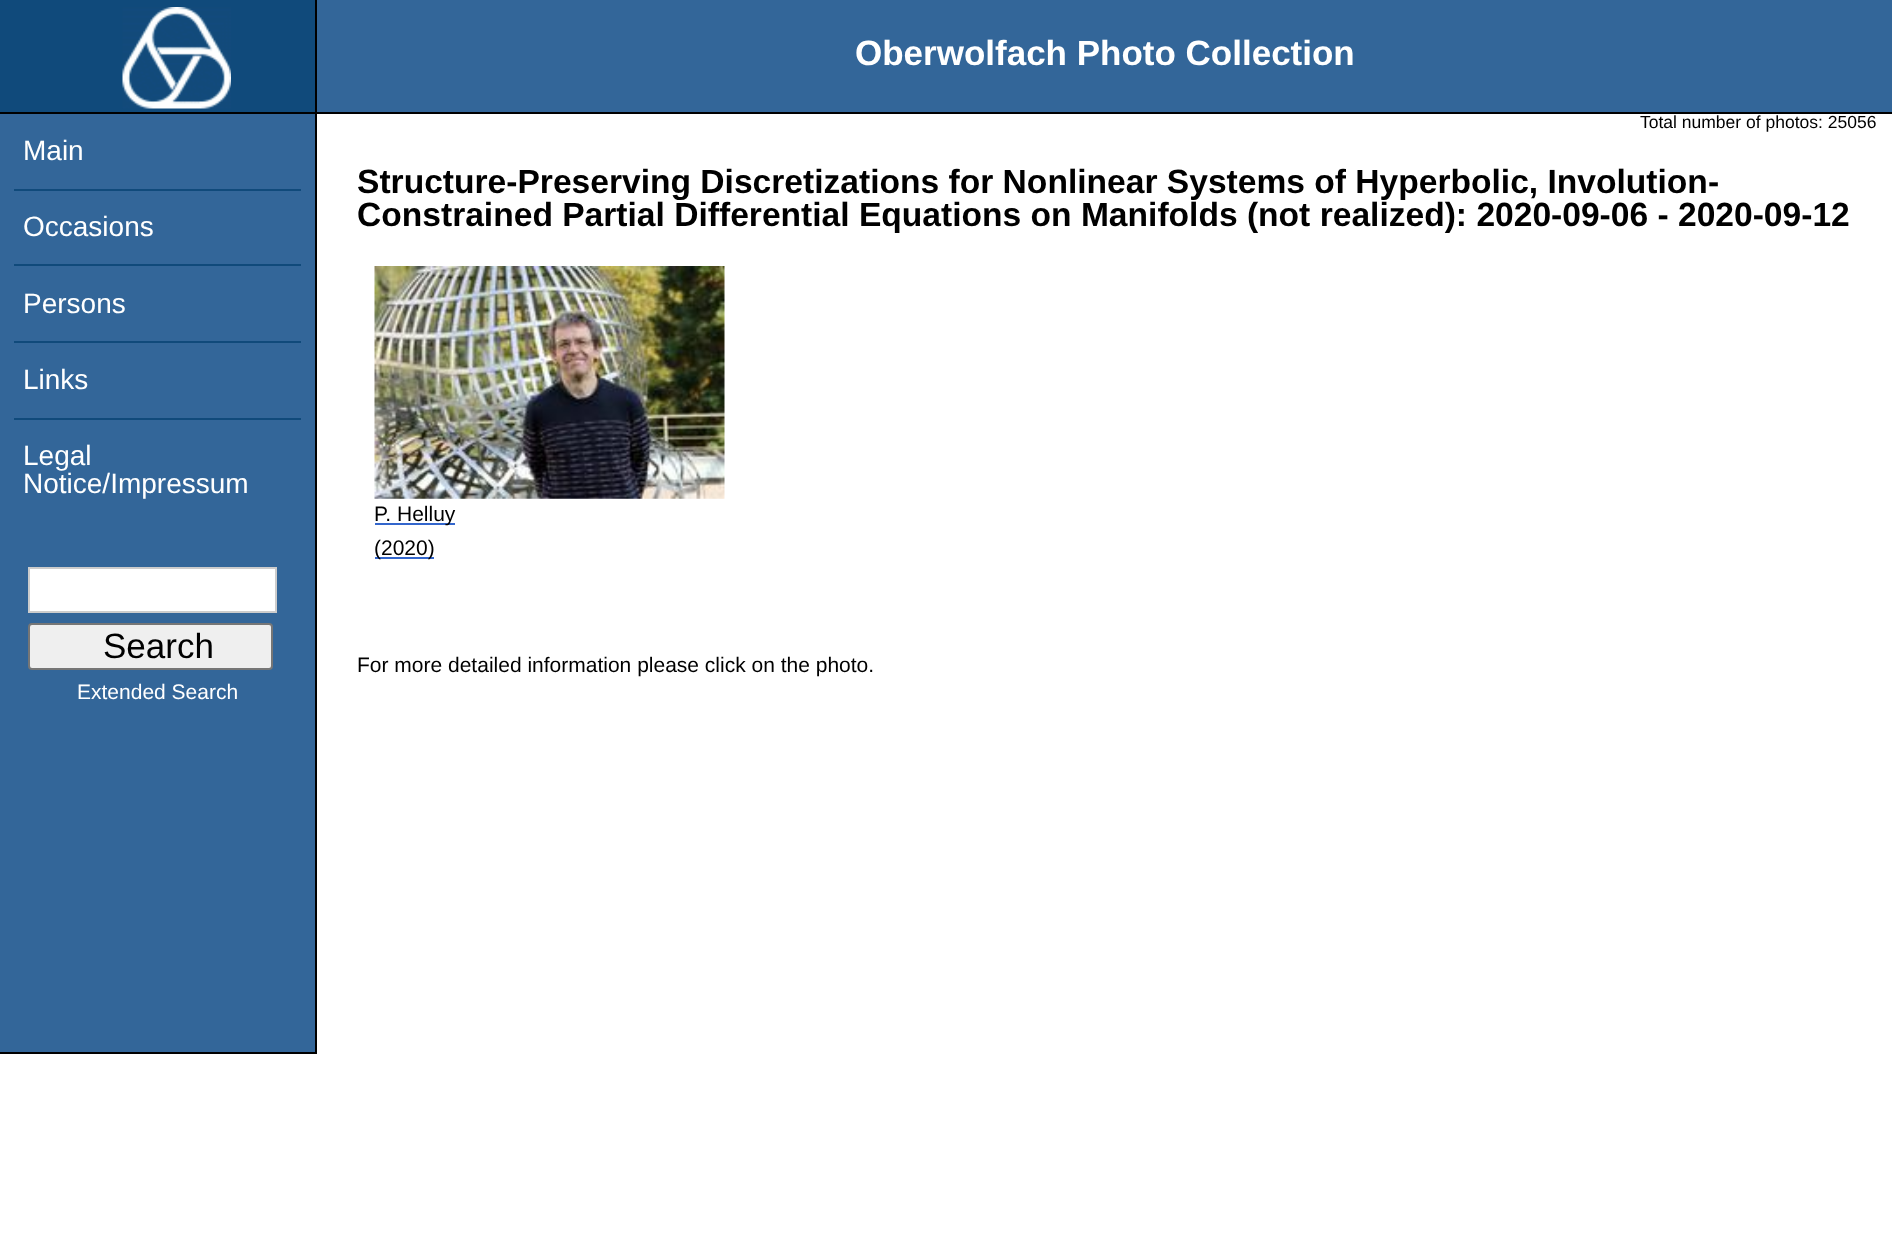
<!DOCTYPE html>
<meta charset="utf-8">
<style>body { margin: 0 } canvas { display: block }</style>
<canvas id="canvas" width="1892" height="1258"></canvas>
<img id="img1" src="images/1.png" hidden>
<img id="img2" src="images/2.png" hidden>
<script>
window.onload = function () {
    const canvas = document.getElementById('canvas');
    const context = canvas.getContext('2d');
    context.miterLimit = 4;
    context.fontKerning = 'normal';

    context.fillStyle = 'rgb(255, 255, 255)';
    context.fillRect(0, 0, 1892, 1258);
    context.fillStyle = 'rgb(51, 102, 153)';
    context.fillRect(317, 0, 1575, 112);
    context.fillStyle = 'rgb(0, 0, 0)';
    context.fillRect(0, 112, 1892, 2);
    context.fillStyle = 'rgb(16, 74, 123)';
    context.fillRect(0, 0, 315, 112);
    context.fillStyle = 'rgb(0, 0, 0)';
    context.fillRect(315, 0, 2, 112);
    context.drawImage(document.getElementById('img1'), 122, 7, 109, 102);
    context.fillStyle = 'rgb(51, 102, 153)';
    context.fillRect(0, 114, 315, 938);
    context.fillStyle = 'rgb(0, 0, 0)';
    context.fillRect(315, 114, 2, 940);
    context.fillRect(0, 1052, 317, 2);
    context.fillStyle = 'rgb(16, 74, 123)';
    context.fillRect(14, 189, 287, 2);
    context.fillRect(14, 264, 287, 2);
    context.fillRect(14, 341, 287, 2);
    context.fillRect(14, 418, 287, 2);
    context.fillStyle = 'rgb(255, 255, 255)';
    context.beginPath();
    context.rect(29, 568, 247, 44);
    context.fill();
    context.strokeStyle = 'rgb(204, 204, 204)';
    context.lineWidth = 2;
    context.stroke();
    context.fillStyle = 'rgb(239, 239, 239)';
    context.beginPath();
    context.roundRect(29, 624, 243, 45, 3);
    context.fill();
    context.strokeStyle = 'rgb(118, 118, 118)';
    context.stroke();
    context.drawImage(document.getElementById('img2'), 374, 266, 351, 233);
    context.fillStyle = 'rgb(51, 102, 204)';
    context.fillRect(375, 523, 80, 2);
    context.fillRect(375, 557, 59, 2);
    context.font = 'bold 35px Liberation Sans';
    context.fillStyle = 'rgb(255, 255, 255)';
    context.fillText('Oberwolfach Photo Collection', 855, 65);
    context.font = '17.5px Liberation Sans';
    context.fillStyle = 'rgb(0, 0, 0)';
    context.fillText('Total number of photos: 25056', 1640, 128);
    context.font = '28px Liberation Sans';
    context.fillStyle = 'rgb(255, 255, 255)';
    context.fillText('Main', 23, 160);
    context.fillText('Occasions', 23, 236);
    context.fillText('Persons', 23, 313);
    context.fillText('Links', 23, 389);
    context.fillText('Legal', 23, 465);
    context.fillText('Notice/Impressum', 23, 493);
    context.font = '35px Liberation Sans';
    context.fillStyle = 'rgb(0, 0, 0)';
    context.fillText('Search', 103, 658);
    context.font = '21px Liberation Sans';
    context.fillStyle = 'rgb(255, 255, 255)';
    context.fillText('Extended Search', 77, 699);
    context.font = 'bold 33.6px Liberation Sans';
    context.fillStyle = 'rgb(0, 0, 0)';
    context.fillText('Structure-Preserving Discretizations for Nonlinear Systems of Hyperbolic, Involution-', 357, 193);
    context.fillText('Constrained Partial Differential Equations on Manifolds (not realized): 2020-09-06 - 2020-09-12', 357, 226);
    context.font = '21px Liberation Sans';
    context.fillText('P. Helluy', 374, 521);
    context.fillText('(2020)', 374, 555);
    context.fillText('For more detailed information please click on the photo.', 357, 672);
};
</script>
